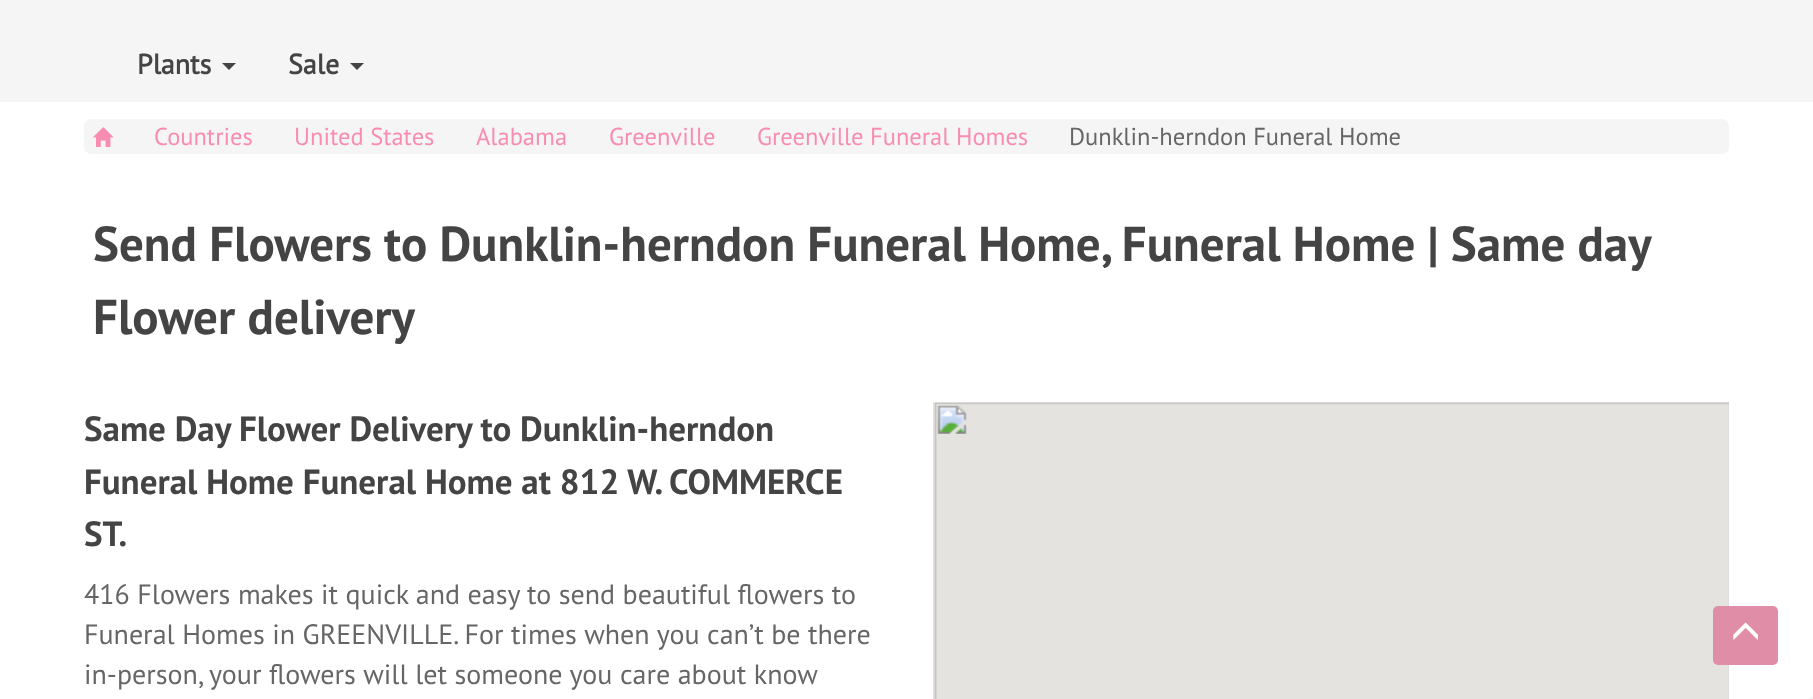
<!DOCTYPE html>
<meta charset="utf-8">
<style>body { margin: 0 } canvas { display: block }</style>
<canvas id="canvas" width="1813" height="699"></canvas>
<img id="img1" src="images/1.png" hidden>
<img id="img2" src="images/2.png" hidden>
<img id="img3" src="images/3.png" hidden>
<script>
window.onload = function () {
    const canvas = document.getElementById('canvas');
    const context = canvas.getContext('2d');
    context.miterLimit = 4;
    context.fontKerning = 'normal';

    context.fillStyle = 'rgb(255, 255, 255)';
    context.fillRect(0, 0, 1813, 699);
    context.fillStyle = 'rgb(245, 245, 245)';
    context.fillRect(0, 0, 1813, 102);
    context.fillStyle = 'rgb(68, 68, 68)';
    context.beginPath();
    context.moveTo(222, 63);
    context.lineTo(236, 63);
    context.lineTo(229, 70);
    context.closePath();
    context.fill();
    context.beginPath();
    context.moveTo(350, 63);
    context.lineTo(364, 63);
    context.lineTo(357, 70);
    context.closePath();
    context.fill();
    context.fillStyle = 'rgb(245, 245, 245)';
    context.beginPath();
    context.roundRect(84, 119, 1645, 35, 7);
    context.fill();
    context.drawImage(document.getElementById('img1'), 93, 127, 21, 20);
    context.drawImage(document.getElementById('img2'), 933, 402, 796, 297);
    context.fillStyle = 'rgb(224, 142, 168)';
    context.beginPath();
    context.roundRect(1713, 606, 65, 59, 5);
    context.fill();
    context.drawImage(document.getElementById('img3'), 1733, 622, 25, 18);
    context.fillStyle = 'rgb(245, 245, 245)';
    context.fillRect(1810, 697, 3, 2);
    context.font = 'bold 28px "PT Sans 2"';
    context.fillStyle = 'rgb(68, 68, 68)';
    context.fillText('Plants', 137, 74);
    context.fillText('Sale', 288, 74);
    context.font = '24.5px PT Sans';
    context.fillStyle = 'rgb(248, 141, 177)';
    context.fillText('Countries', 154, 145);
    context.fillText('United States', 294, 145);
    context.fillText('Alabama', 476, 145);
    context.fillText('Greenville', 609, 145);
    context.fillText('Greenville Funeral Homes', 757, 145);
    context.fillStyle = 'rgb(102, 102, 102)';
    context.fillText('Dunklin-herndon Funeral Home', 1069, 145);
    context.wordSpacing = '-0.25px';
    context.font = 'bold 49px PT Sans';
    context.fillStyle = 'rgb(68, 68, 68)';
    context.fillText('Send Flowers to Dunklin-herndon Funeral Home, Funeral Home | Same day', 93, 261);
    context.wordSpacing = '0px';
    context.fillText('Flower delivery', 93, 334);
    context.font = 'bold 35px PT Sans';
    context.fillText('Same Day Flower Delivery to Dunklin-herndon', 84, 441);
    context.fillText('Funeral Home Funeral Home at 812 W. COMMERCE', 84, 494);
    context.fillText('ST.', 84, 546);
    context.font = '28px PT Sans';
    context.fillStyle = 'rgb(102, 102, 102)';
    context.fillText('416 Flowers makes it quick and easy to send beautiful flowers to', 84, 604);
    context.fillText('Funeral Homes in GREENVILLE. For times when you can’t be there', 84, 644);
    context.fillText('in-person, your flowers will let someone you care about know', 84, 684);
};
</script>
